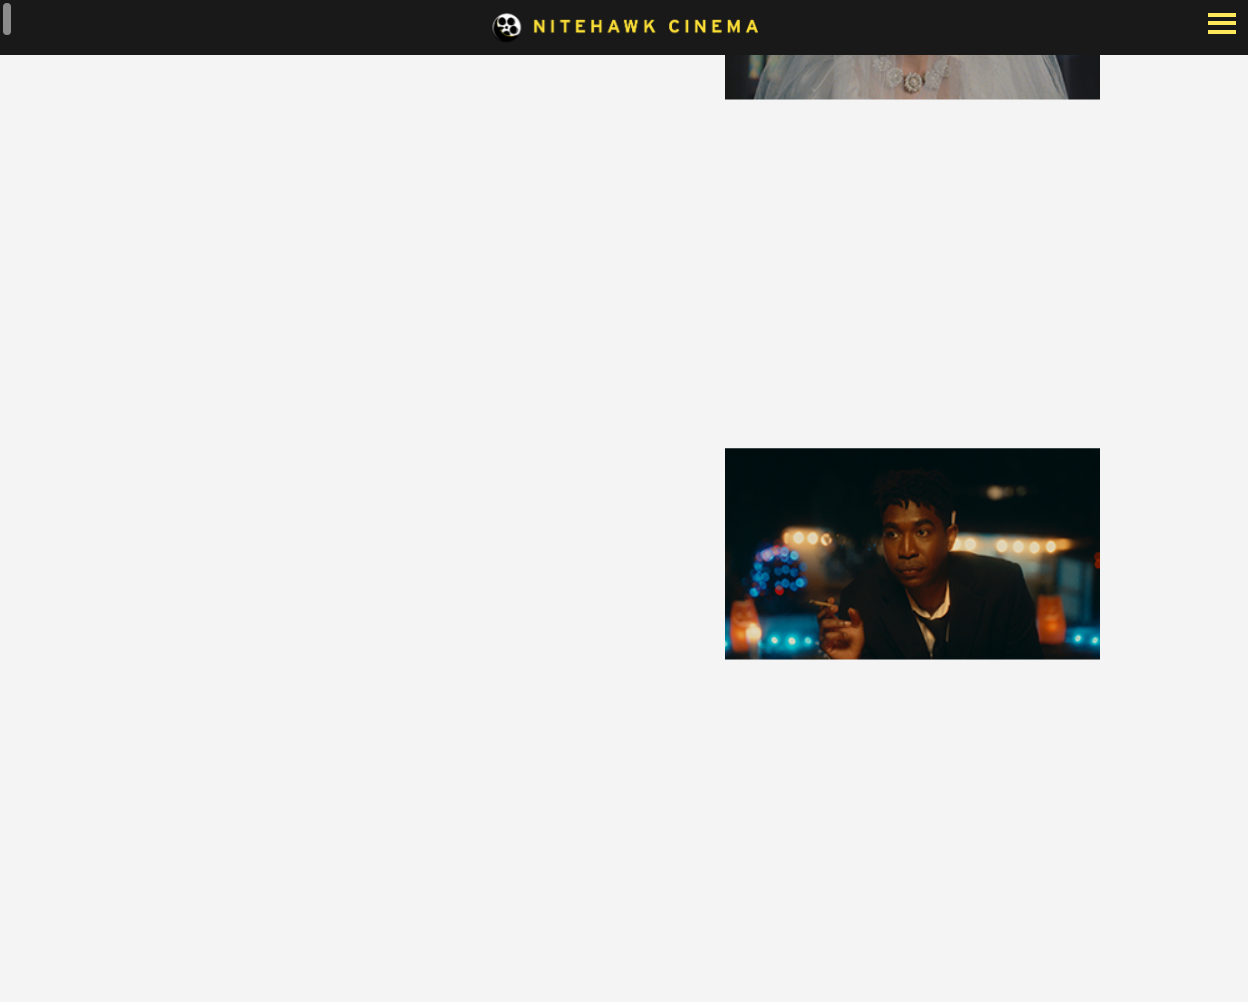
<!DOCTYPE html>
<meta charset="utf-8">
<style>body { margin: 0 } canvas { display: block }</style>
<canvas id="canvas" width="1248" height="1002"></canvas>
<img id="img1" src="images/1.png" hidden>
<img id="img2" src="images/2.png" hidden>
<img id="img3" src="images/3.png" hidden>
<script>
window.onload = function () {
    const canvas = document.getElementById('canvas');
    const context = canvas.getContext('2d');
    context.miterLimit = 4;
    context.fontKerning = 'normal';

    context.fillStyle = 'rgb(244, 244, 244)';
    context.fillRect(0, 0, 1248, 1002);
    context.fillStyle = 'rgb(25, 25, 25)';
    context.fillRect(0, 0, 1248, 55);
    context.fillStyle = 'rgb(140, 140, 140)';
    context.beginPath();
    context.roundRect(3, 3, 8, 32, 4);
    context.fill();
    context.drawImage(document.getElementById('img1'), 491, 13, 267, 30);
    context.fillStyle = 'rgb(255, 233, 91)';
    context.fillRect(1208, 13, 28, 4);
    context.fillRect(1208, 21, 28, 4);
    context.fillRect(1208, 30, 28, 4);
    context.drawImage(document.getElementById('img2'), 725, 55, 375, 45);
    context.drawImage(document.getElementById('img3'), 725, 448, 375, 212);
};
</script>
